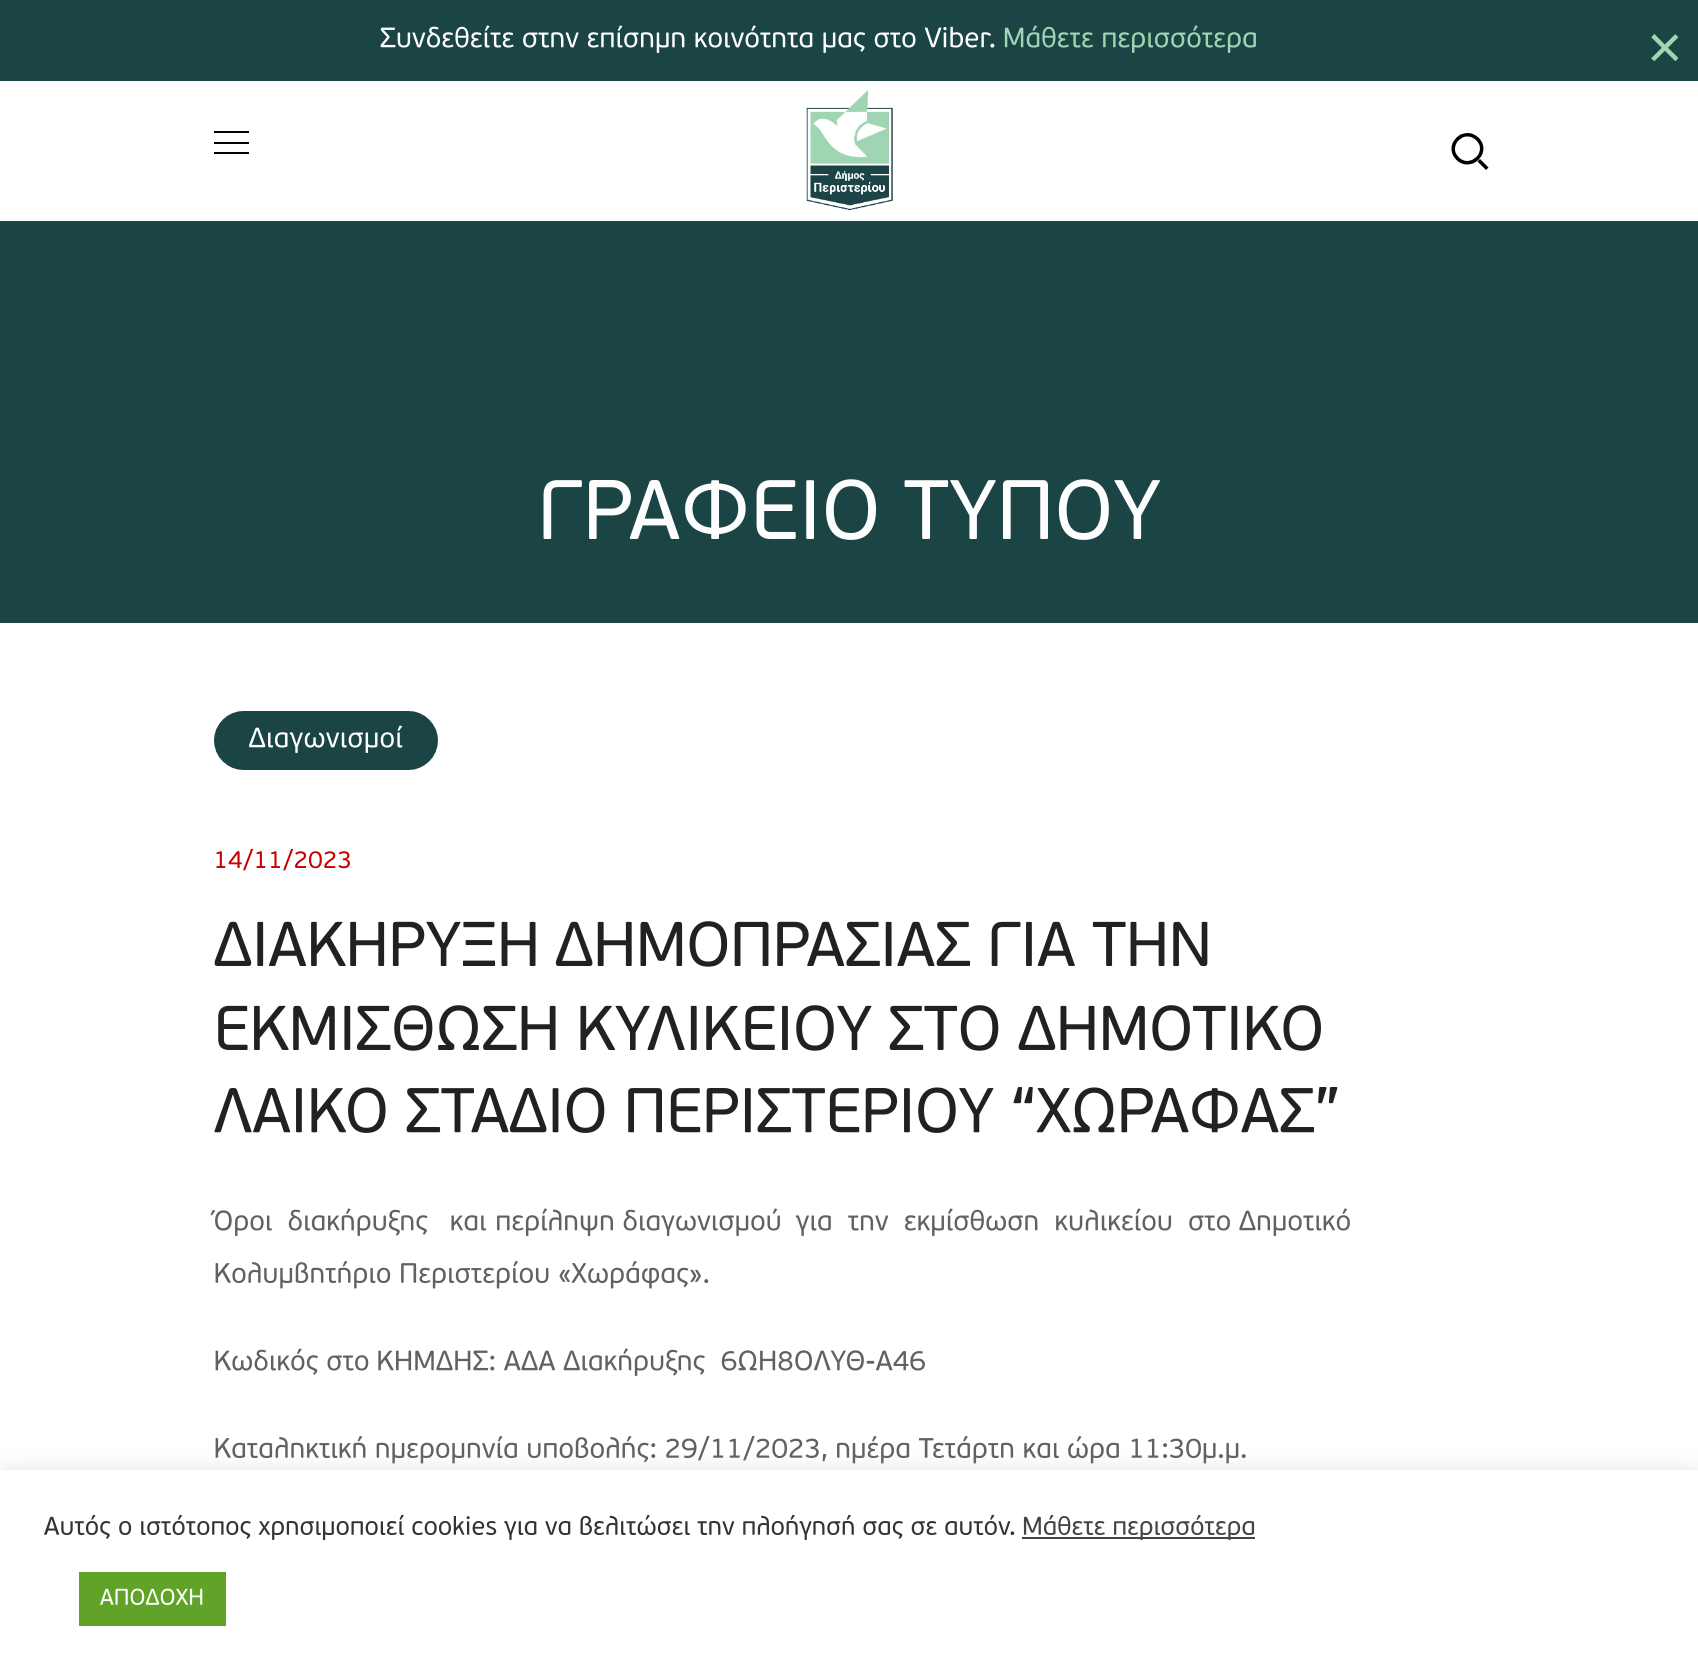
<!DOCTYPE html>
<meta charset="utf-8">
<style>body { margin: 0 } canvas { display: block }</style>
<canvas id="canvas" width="1698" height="1677"></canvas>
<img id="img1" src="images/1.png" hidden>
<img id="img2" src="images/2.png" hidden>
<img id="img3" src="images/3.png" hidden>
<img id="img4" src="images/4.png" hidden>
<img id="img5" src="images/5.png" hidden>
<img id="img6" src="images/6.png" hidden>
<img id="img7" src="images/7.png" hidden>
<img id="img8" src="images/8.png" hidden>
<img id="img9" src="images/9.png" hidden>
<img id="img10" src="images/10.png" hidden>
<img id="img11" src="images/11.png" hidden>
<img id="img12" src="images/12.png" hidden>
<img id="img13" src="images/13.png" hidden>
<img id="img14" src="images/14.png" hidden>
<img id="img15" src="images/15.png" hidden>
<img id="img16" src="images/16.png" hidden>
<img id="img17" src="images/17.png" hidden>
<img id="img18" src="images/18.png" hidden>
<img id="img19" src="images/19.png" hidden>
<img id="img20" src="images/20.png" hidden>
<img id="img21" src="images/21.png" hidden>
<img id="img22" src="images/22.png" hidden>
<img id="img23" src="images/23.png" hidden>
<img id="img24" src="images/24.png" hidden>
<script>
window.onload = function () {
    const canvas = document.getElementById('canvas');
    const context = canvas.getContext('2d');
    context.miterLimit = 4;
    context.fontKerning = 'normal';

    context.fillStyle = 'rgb(255, 255, 255)';
    context.fillRect(0, 0, 1698, 1677);
    context.fillStyle = 'rgb(27, 68, 69)';
    context.fillRect(0, 0, 1698, 81);
    context.drawImage(document.getElementById('img1'), 380, 25, 615, 28);
    context.drawImage(document.getElementById('img2'), 1004, 25, 252, 28);
    context.fillStyle = 'rgb(0, 0, 0)';
    context.fillRect(214, 131, 35, 2);
    context.fillRect(214, 142, 35, 2);
    context.fillRect(214, 152, 35, 2);
    context.drawImage(document.getElementById('img3'), 806, 90, 87, 121);
    context.beginPath();
    context.moveTo(1477.5, 139);
    context.bezierCurveTo(1490.5, 152, 1470.5, 171.5, 1457.5, 158.5);
    context.bezierCurveTo(1444.5, 145.5, 1464, 126, 1477.5, 139);
    context.closePath();
    context.strokeStyle = 'rgb(0, 0, 0)';
    context.lineWidth = 3.5;
    context.stroke();
    context.beginPath();
    context.moveTo(1477.5, 161.5);
    context.lineTo(1480, 159);
    context.lineTo(1488.5, 167.5);
    context.lineTo(1486, 170);
    context.closePath();
    context.fill();
    context.fillStyle = 'rgb(27, 68, 69)';
    context.fillRect(0, 221, 1698, 402);
    context.drawImage(document.getElementById('img4'), 543, 479, 617, 61);
    context.beginPath();
    context.roundRect(214, 711, 224, 59, 29.5);
    context.fill();
    context.drawImage(document.getElementById('img5'), 249, 725, 154, 28);
    context.drawImage(document.getElementById('img6'), 216, 848, 134, 23);
    context.drawImage(document.getElementById('img7'), 214, 921, 322, 45);
    context.drawImage(document.getElementById('img8'), 555, 921, 416, 46);
    context.drawImage(document.getElementById('img9'), 991, 921, 84, 45);
    context.drawImage(document.getElementById('img10'), 1092, 921, 116, 45);
    context.drawImage(document.getElementById('img11'), 218, 1005, 338, 46);
    context.drawImage(document.getElementById('img12'), 580, 1005, 741, 46);
    context.drawImage(document.getElementById('img13'), 214, 1087, 1124, 46);
    context.drawImage(document.getElementById('img14'), 210, 1208, 218, 28);
    context.drawImage(document.getElementById('img15'), 451, 1215, 36, 16);
    context.drawImage(document.getElementById('img16'), 497, 1208, 283, 28);
    context.drawImage(document.getElementById('img17'), 795, 1208, 555, 28);
    context.drawImage(document.getElementById('img18'), 215, 1261, 494, 28);
    context.drawImage(document.getElementById('img19'), 215, 1348, 154, 27);
    context.drawImage(document.getElementById('img20'), 378, 1348, 547, 28);
    context.drawImage(document.getElementById('img21'), 215, 1435, 1031, 29);
    context.fillStyle = 'rgba(172, 171, 171, 0.3)';
    context.filter = 'blur(9px)';
    context.beginPath();
    context.rect(0, 1468, 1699, 209);
    context.fill();
    context.filter = 'none';
    context.fillStyle = 'rgb(255, 255, 255)';
    context.fillRect(0, 1470, 1698, 207);
    context.drawImage(document.getElementById('img22'), 44, 1514, 971, 26);
    context.fillStyle = 'rgb(68, 68, 68)';
    context.fillRect(1022, 1537, 233, 2);
    context.drawImage(document.getElementById('img23'), 1023, 1514, 232, 26);
    context.fillStyle = 'rgb(97, 162, 41)';
    context.fillRect(79, 1572, 147, 54);
    context.drawImage(document.getElementById('img24'), 100, 1588, 103, 17);
    context.font = '61px Liberation Sans';
    context.fillStyle = 'rgb(159, 213, 179)';
    context.fillText('×', 1647, 68);
};
</script>
